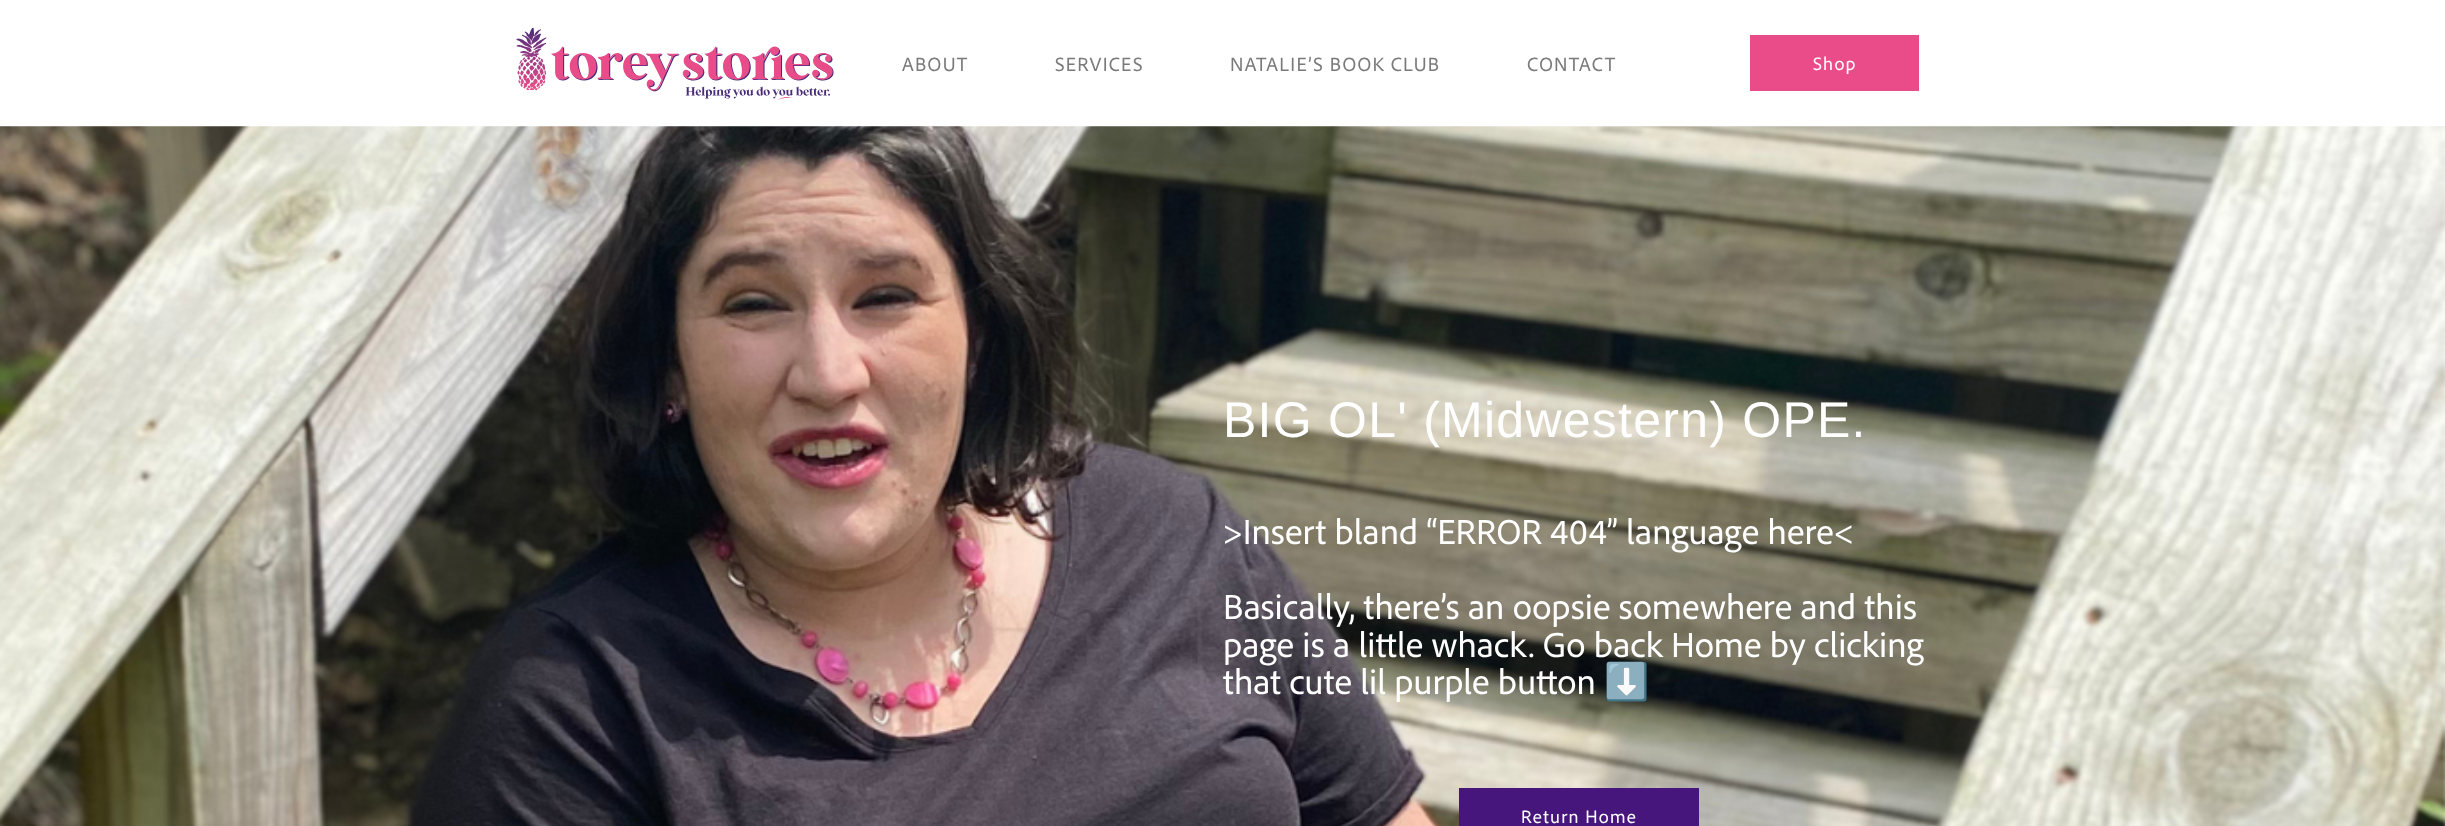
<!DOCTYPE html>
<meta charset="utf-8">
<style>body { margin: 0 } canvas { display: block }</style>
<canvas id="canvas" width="2445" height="826"></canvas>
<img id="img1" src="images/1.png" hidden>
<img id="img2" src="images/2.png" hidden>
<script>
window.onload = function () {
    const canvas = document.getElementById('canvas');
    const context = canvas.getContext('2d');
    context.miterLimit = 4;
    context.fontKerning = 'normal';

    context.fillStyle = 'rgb(255, 255, 255)';
    context.fillRect(0, 0, 2445, 826);
    context.drawImage(document.getElementById('img1'), 516, 28, 318, 72);
    context.fillStyle = 'rgb(234, 76, 137)';
    context.fillRect(1750, 35, 169, 56);
    context.drawImage(document.getElementById('img2'), 0, 126, 2445, 700);
    context.fillStyle = 'rgb(71, 22, 125)';
    context.fillRect(1459, 788, 240, 38);
    context.letterSpacing = '1.25px';
    context.font = '20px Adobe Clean';
    context.fillStyle = 'rgb(122, 122, 122)';
    context.fillText('ABOUT', 902, 71);
    context.fillText('SERVICES', 1055, 71);
    context.fillText('NATALIE’S BOOK CLUB', 1230, 71);
    context.fillText('CONTACT', 1527, 71);
    context.font = '18.75px Adobe Clean';
    context.fillStyle = 'rgb(255, 255, 255)';
    context.fillText('Shop', 1813, 70);
    context.font = '50px Liberation Sans';
    context.fillText('BIG OL\' (Midwestern) OPE.', 1223, 437);
    context.letterSpacing = '0px';
    context.font = '36.25px Adobe Clean';
    context.fillText('>Insert bland “ERROR 404” language here<', 1223, 544);
    context.fillText('Basically, there’s an oopsie somewhere and this', 1223, 619);
    context.fillText('page is a little whack. Go back Home by clicking', 1223, 657);
    context.fillText('that cute lil purple button', 1223, 694);
    context.font = '36.25px Noto Color Emoji';
    context.fillText('⬇️', 1604, 694);
    context.letterSpacing = '1.25px';
    context.font = '18.75px Adobe Clean';
    context.fillText('Return Home', 1521, 823);
};
</script>
